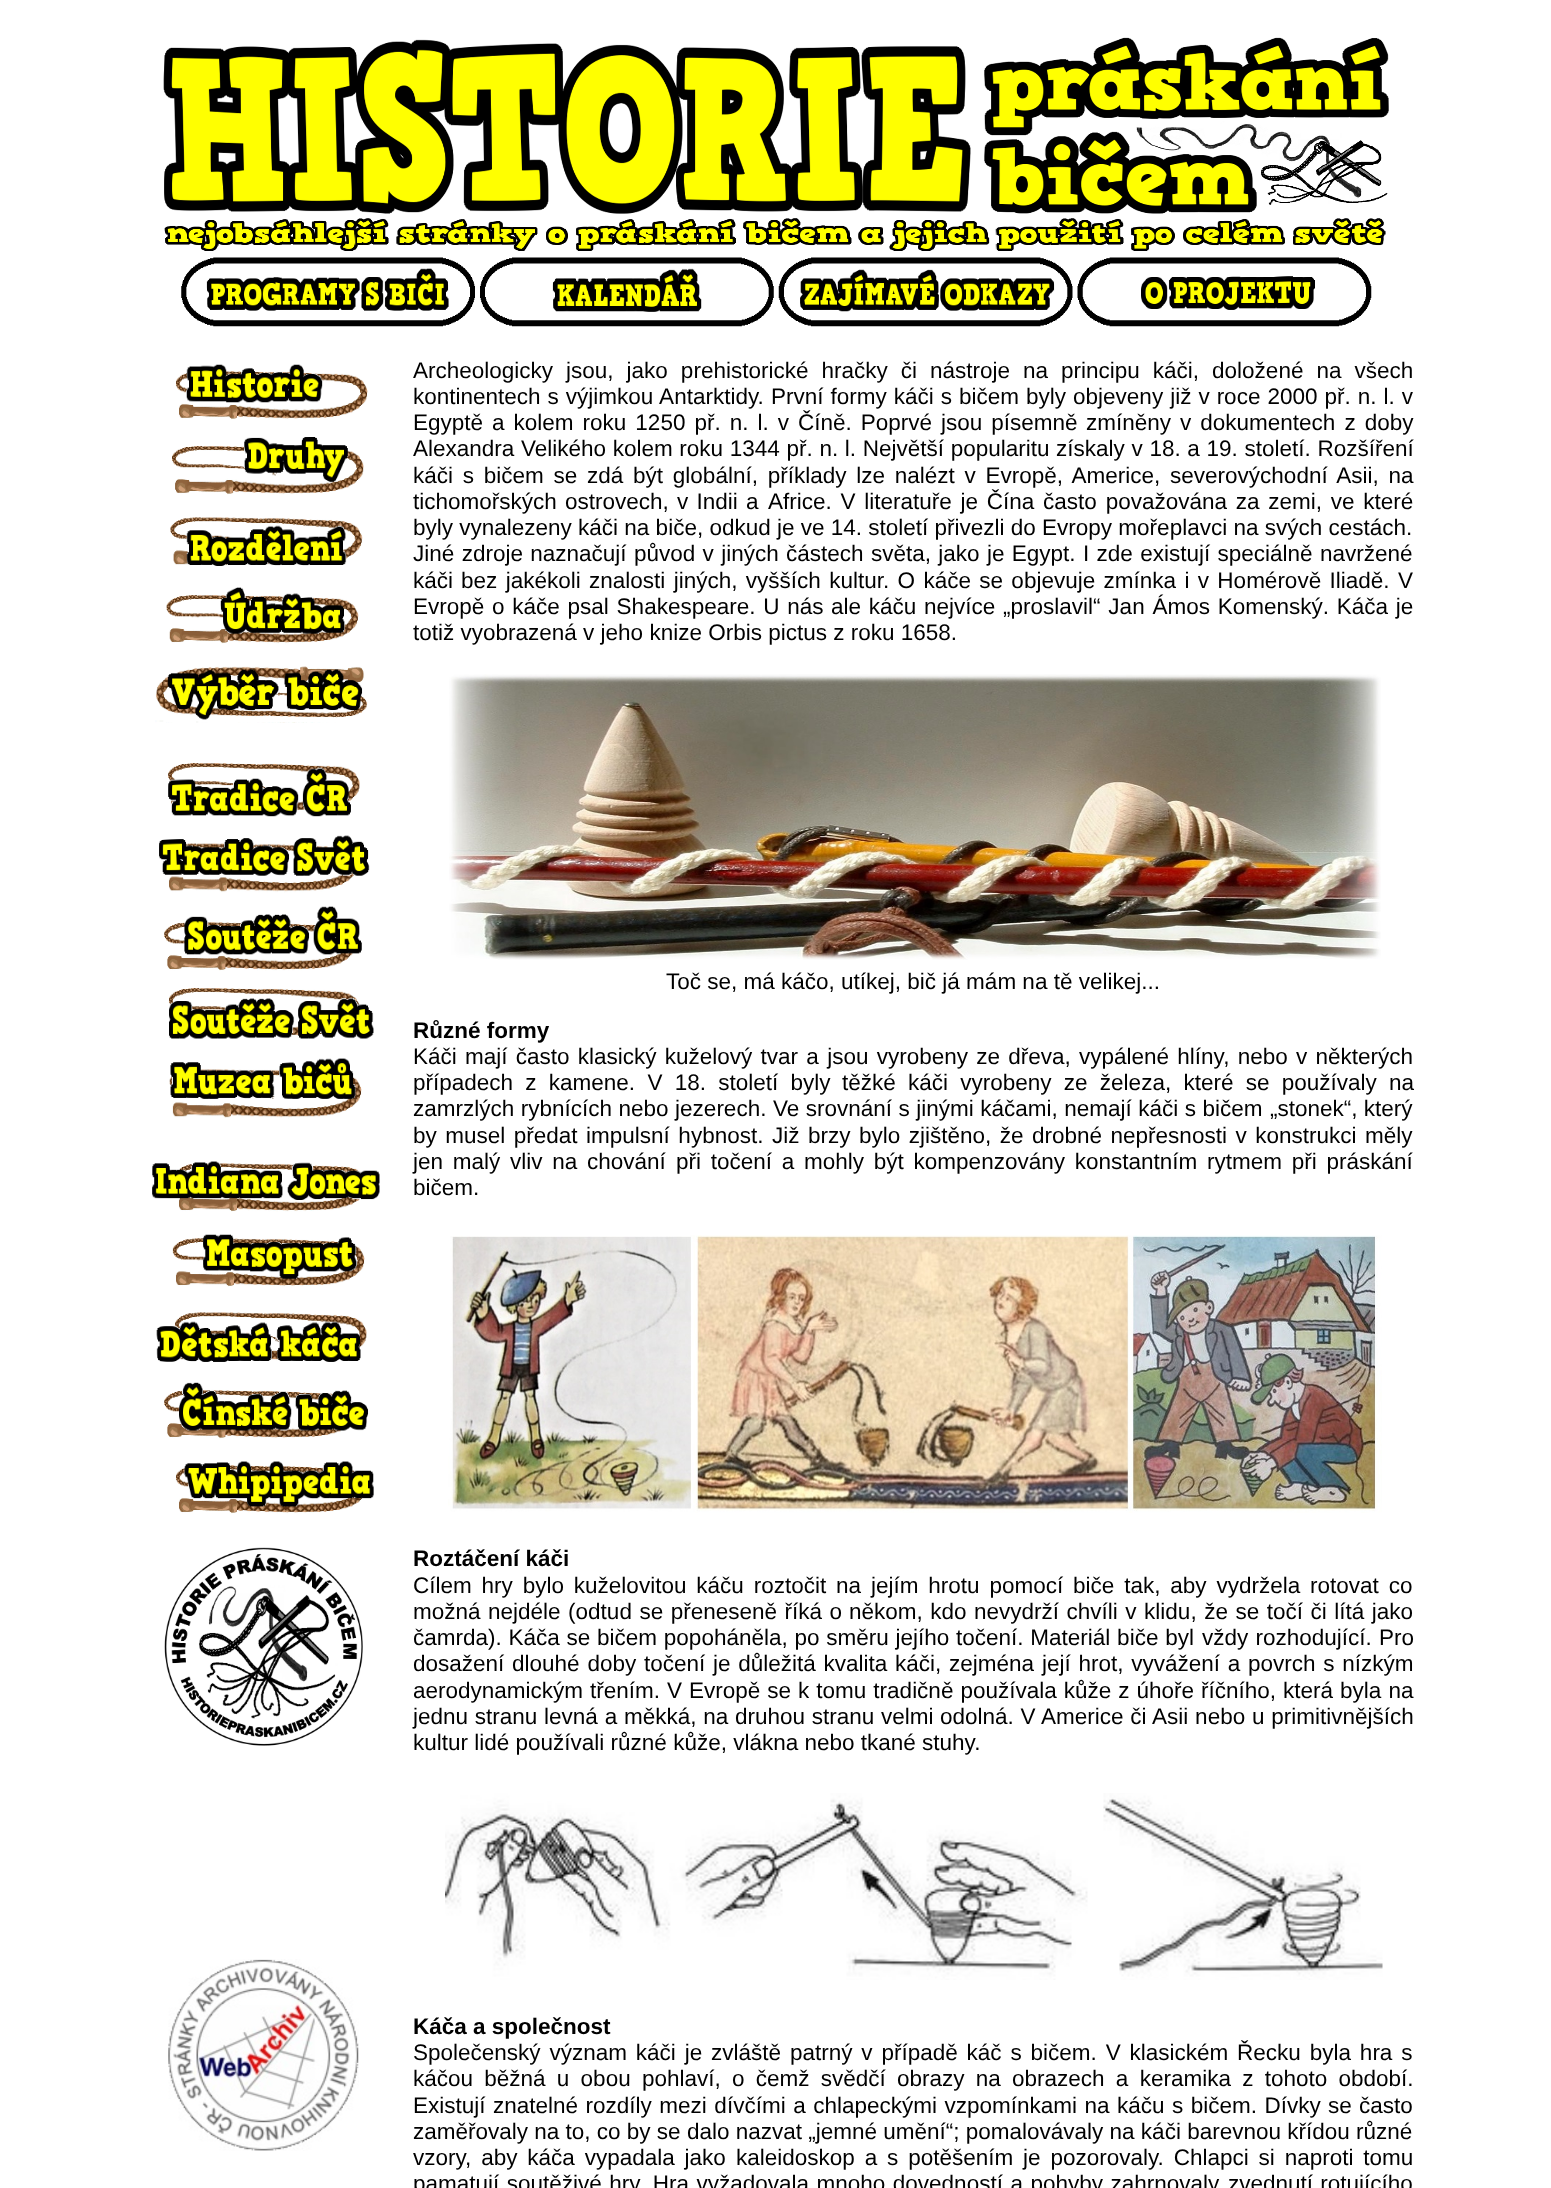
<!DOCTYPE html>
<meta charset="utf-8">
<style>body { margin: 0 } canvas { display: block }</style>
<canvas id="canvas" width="1551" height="2188"></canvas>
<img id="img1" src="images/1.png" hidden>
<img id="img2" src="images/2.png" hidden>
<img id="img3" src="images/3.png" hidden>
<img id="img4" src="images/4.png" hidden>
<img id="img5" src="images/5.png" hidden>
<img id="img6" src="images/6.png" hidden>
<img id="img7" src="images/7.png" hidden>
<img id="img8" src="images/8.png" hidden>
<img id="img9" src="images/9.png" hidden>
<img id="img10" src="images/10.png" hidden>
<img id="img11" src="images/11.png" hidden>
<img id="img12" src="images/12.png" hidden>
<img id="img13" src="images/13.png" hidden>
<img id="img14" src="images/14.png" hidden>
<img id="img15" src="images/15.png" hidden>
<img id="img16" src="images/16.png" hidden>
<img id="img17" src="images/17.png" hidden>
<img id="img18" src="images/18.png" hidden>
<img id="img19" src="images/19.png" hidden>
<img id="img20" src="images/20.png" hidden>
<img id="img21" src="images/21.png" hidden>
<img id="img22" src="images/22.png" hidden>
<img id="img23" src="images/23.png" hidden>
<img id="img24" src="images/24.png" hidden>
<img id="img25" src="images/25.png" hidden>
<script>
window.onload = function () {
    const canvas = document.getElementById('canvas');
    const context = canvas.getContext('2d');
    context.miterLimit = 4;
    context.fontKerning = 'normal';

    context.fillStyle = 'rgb(255, 255, 255)';
    context.fillRect(0, 0, 1551, 2188);
    context.drawImage(document.getElementById('img1'), 163, 37, 1226, 214);
    context.drawImage(document.getElementById('img2'), 181, 257, 294, 70);
    context.drawImage(document.getElementById('img3'), 480, 257, 294, 70);
    context.drawImage(document.getElementById('img4'), 778, 257, 295, 70);
    context.drawImage(document.getElementById('img5'), 1077, 257, 295, 70);
    context.drawImage(document.getElementById('img6'), 175, 364, 193, 56);
    context.drawImage(document.getElementById('img7'), 172, 437, 192, 58);
    context.drawImage(document.getElementById('img8'), 170, 517, 193, 50);
    context.drawImage(document.getElementById('img9'), 166, 587, 193, 58);
    context.drawImage(document.getElementById('img10'), 155, 666, 213, 57);
    context.drawImage(document.getElementById('img11'), 168, 763, 192, 54);
    context.drawImage(document.getElementById('img12'), 159, 835, 211, 58);
    context.drawImage(document.getElementById('img13'), 164, 906, 198, 65);
    context.drawImage(document.getElementById('img14'), 168, 988, 206, 51);
    context.drawImage(document.getElementById('img15'), 169, 1058, 193, 61);
    context.drawImage(document.getElementById('img16'), 152, 1161, 228, 51);
    context.drawImage(document.getElementById('img17'), 172, 1234, 193, 54);
    context.drawImage(document.getElementById('img18'), 156, 1312, 211, 50);
    context.drawImage(document.getElementById('img19'), 164, 1382, 205, 57);
    context.drawImage(document.getElementById('img20'), 175, 1461, 199, 53);
    context.drawImage(document.getElementById('img21'), 164, 1547, 199, 199);
    context.drawImage(document.getElementById('img22'), 168, 1959, 191, 192);
    context.drawImage(document.getElementById('img23'), 449, 674, 932, 286);
    context.drawImage(document.getElementById('img24'), 448, 1235, 934, 278);
    context.drawImage(document.getElementById('img25'), 445, 1793, 938, 187);
    context.wordSpacing = '6.75px';
    context.font = '22.5px Liberation Sans';
    context.fillStyle = 'rgb(0, 0, 0)';
    context.fillText('Archeologicky jsou, jako prehistorické hračky či nástroje na principu káči, doložené na všech', 413, 378);
    context.wordSpacing = '0.75px';
    context.fillText('kontinentech s výjimkou Antarktidy.', 413, 404);
    context.fillText('První formy káči s bičem byly objeveny již v roce 2000 př. n. l. v', 771, 404);
    context.wordSpacing = '2.75px';
    context.fillText('Egyptě a kolem roku 1250 př. n. l. v Číně. Poprvé jsou písemně', 413, 430);
    context.fillText('zmíněny v dokumentech z doby', 1086, 430);
    context.wordSpacing = '0.4px';
    context.fillText('Alexandra Velikého kolem roku 1344 př. n. l. Největší popularitu získaly v 18. a 19. století. Rozšíření', 413, 456);
    context.wordSpacing = '3.5px';
    context.fillText('káči s bičem se zdá být globální, příklady lze nalézt v Evropě, Americe, severovýchodní Asii, na', 413, 483);
    context.wordSpacing = '2px';
    context.fillText('tichomořských ostrovech, v Indii a', 413, 509);
    context.wordSpacing = '2.5px';
    context.fillText('Africe. V literatuře je Čína často považována za zemi, ve které', 768, 509);
    context.wordSpacing = '0px';
    context.fillText('byly vynalezeny káči na biče, odkud je ve 14. století přivezli do Evropy mořeplavci na svých cestách.', 413, 535);
    context.wordSpacing = '1.1px';
    context.fillText('Jiné zdroje naznačují původ v jiných částech světa, jako je Egypt. I zde existují speciálně navržené', 413, 561);
    context.wordSpacing = '0px';
    context.fillText('káči', 413, 588);
    context.wordSpacing = '2.1px';
    context.fillText('bez jakékoli znalosti jiných, vyšších kultur. O káče se objevuje zmínka i v Homérově Iliadě. V', 461, 588);
    context.wordSpacing = '1.5px';
    context.fillText('Evropě o káče psal Shakespeare. U nás', 413, 614);
    context.fillText('ale káču nejvíce „proslavil“ Jan Ámos Komenský. Káča je', 831, 614);
    context.wordSpacing = '0px';
    context.fillText('totiž vyobrazená v jeho knize Orbis pictus z roku 1658.', 413, 640);
    context.fillText('Toč se, má káčo, utíkej, bič já mám na tě velikej...', 666, 989);
    context.font = 'bold 22.5px Liberation Sans';
    context.fillText('Různé formy', 413, 1038);
    context.wordSpacing = '2px';
    context.font = '22.5px Liberation Sans';
    context.fillText('Káči mají často klasický kuželový tvar a jsou vyrobeny ze dřeva, vypálené hlíny, nebo v některých', 413, 1064);
    context.wordSpacing = '6px';
    context.fillText('případech z kamene. V 18. století byly', 413, 1090);
    context.fillText('těžké káči vyrobeny ze železa, které se používaly na', 842, 1090);
    context.wordSpacing = '0.25px';
    context.fillText('zamrzlých rybnících nebo jezerech. Ve srovnání s jinými káčami, nemají káči s bičem', 413, 1116);
    context.wordSpacing = '0px';
    context.fillText('„stonek“, který', 1270, 1116);
    context.wordSpacing = '2.25px';
    context.fillText('by musel předat impulsní hybnost. Již brzy bylo zjištěno, že drobné nepřesnosti v konstrukci měly', 413, 1143);
    context.wordSpacing = '3.5px';
    context.fillText('jen malý vliv na chování', 413, 1169);
    context.fillText('při točení a mohly být kompenzovány konstantním rytmem při práskání', 676, 1169);
    context.wordSpacing = '0px';
    context.fillText('bičem.', 413, 1195);
    context.font = 'bold 22.5px Liberation Sans';
    context.fillText('Roztáčení káči', 413, 1566);
    context.wordSpacing = '3.6px';
    context.font = '22.5px Liberation Sans';
    context.fillText('Cílem hry bylo kuželovitou káču roztočit na jejím hrotu pomocí biče tak, aby vydržela rotovat co', 413, 1593);
    context.wordSpacing = '1.25px';
    context.fillText('možná nejdéle (odtud se přeneseně říká o', 413, 1619);
    context.fillText('někom, kdo nevydrží chvíli v klidu, že se točí či lítá jako', 849, 1619);
    context.wordSpacing = '0.5px';
    context.fillText('čamrda). Káča se bičem popoháněla, po směru jejího točení. Materiál biče byl', 413, 1645);
    context.wordSpacing = '1px';
    context.fillText('vždy rozhodující. Pro', 1202, 1645);
    context.wordSpacing = '1.5px';
    context.fillText('dosažení dlouhé doby točení je důležitá kvalita káči, zejména její hrot, vyvážení a povrch s nízkým', 413, 1671);
    context.wordSpacing = '0px';
    context.fillText('aerodynamickým', 413, 1698);
    context.wordSpacing = '0.75px';
    context.fillText('třením. V Evropě se k tomu tradičně používala kůže z úhoře říčního, která byla na', 590, 1698);
    context.wordSpacing = '0.5px';
    context.fillText('jednu stranu levná a měkká, na druhou stranu velmi', 413, 1724);
    context.fillText('odolná. V Americe či Asii nebo u primitivnějších', 940, 1724);
    context.wordSpacing = '0px';
    context.fillText('kultur lidé používali různé kůže, vlákna nebo tkané stuhy.', 413, 1750);
    context.font = 'bold 22.5px Liberation Sans';
    context.fillText('Káča a společnost', 413, 2034);
    context.wordSpacing = '2.6px';
    context.font = '22.5px Liberation Sans';
    context.fillText('Společenský význam káči je zvláště patrný v případě káč s bičem. V klasickém Řecku byla hra s', 413, 2060);
    context.wordSpacing = '5px';
    context.fillText('káčou běžná u obou pohlaví, o čemž svědčí', 413, 2086);
    context.fillText('obrazy na obrazech a keramika z tohoto období.', 897, 2086);
    context.wordSpacing = '1.25px';
    context.fillText('Existují znatelné rozdíly mezi dívčími a chlapeckými vzpomínkami na káču s bičem. Dívky', 413, 2113);
    context.wordSpacing = '1px';
    context.fillText('se často', 1328, 2113);
    context.wordSpacing = '0px';
    context.fillText('zaměřovaly na to, co by se dalo nazvat „jemné umění“; pomalovávaly na káči barevnou křídou různé', 413, 2139);
    context.wordSpacing = '3.6px';
    context.fillText('vzory, aby káča vypadala jako', 413, 2165);
    context.fillText('kaleidoskop a s potěšením je pozorovaly. Chlapci si naproti tomu', 736, 2165);
    context.wordSpacing = '1.25px';
    context.fillText('pamatují soutěživé hry. Hra vyžadovala mnoho dovedností a pohyby zahrnovaly', 413, 2191);
    context.wordSpacing = '1px';
    context.fillText('zvednutí rotujícího', 1228, 2191);
};
</script>
